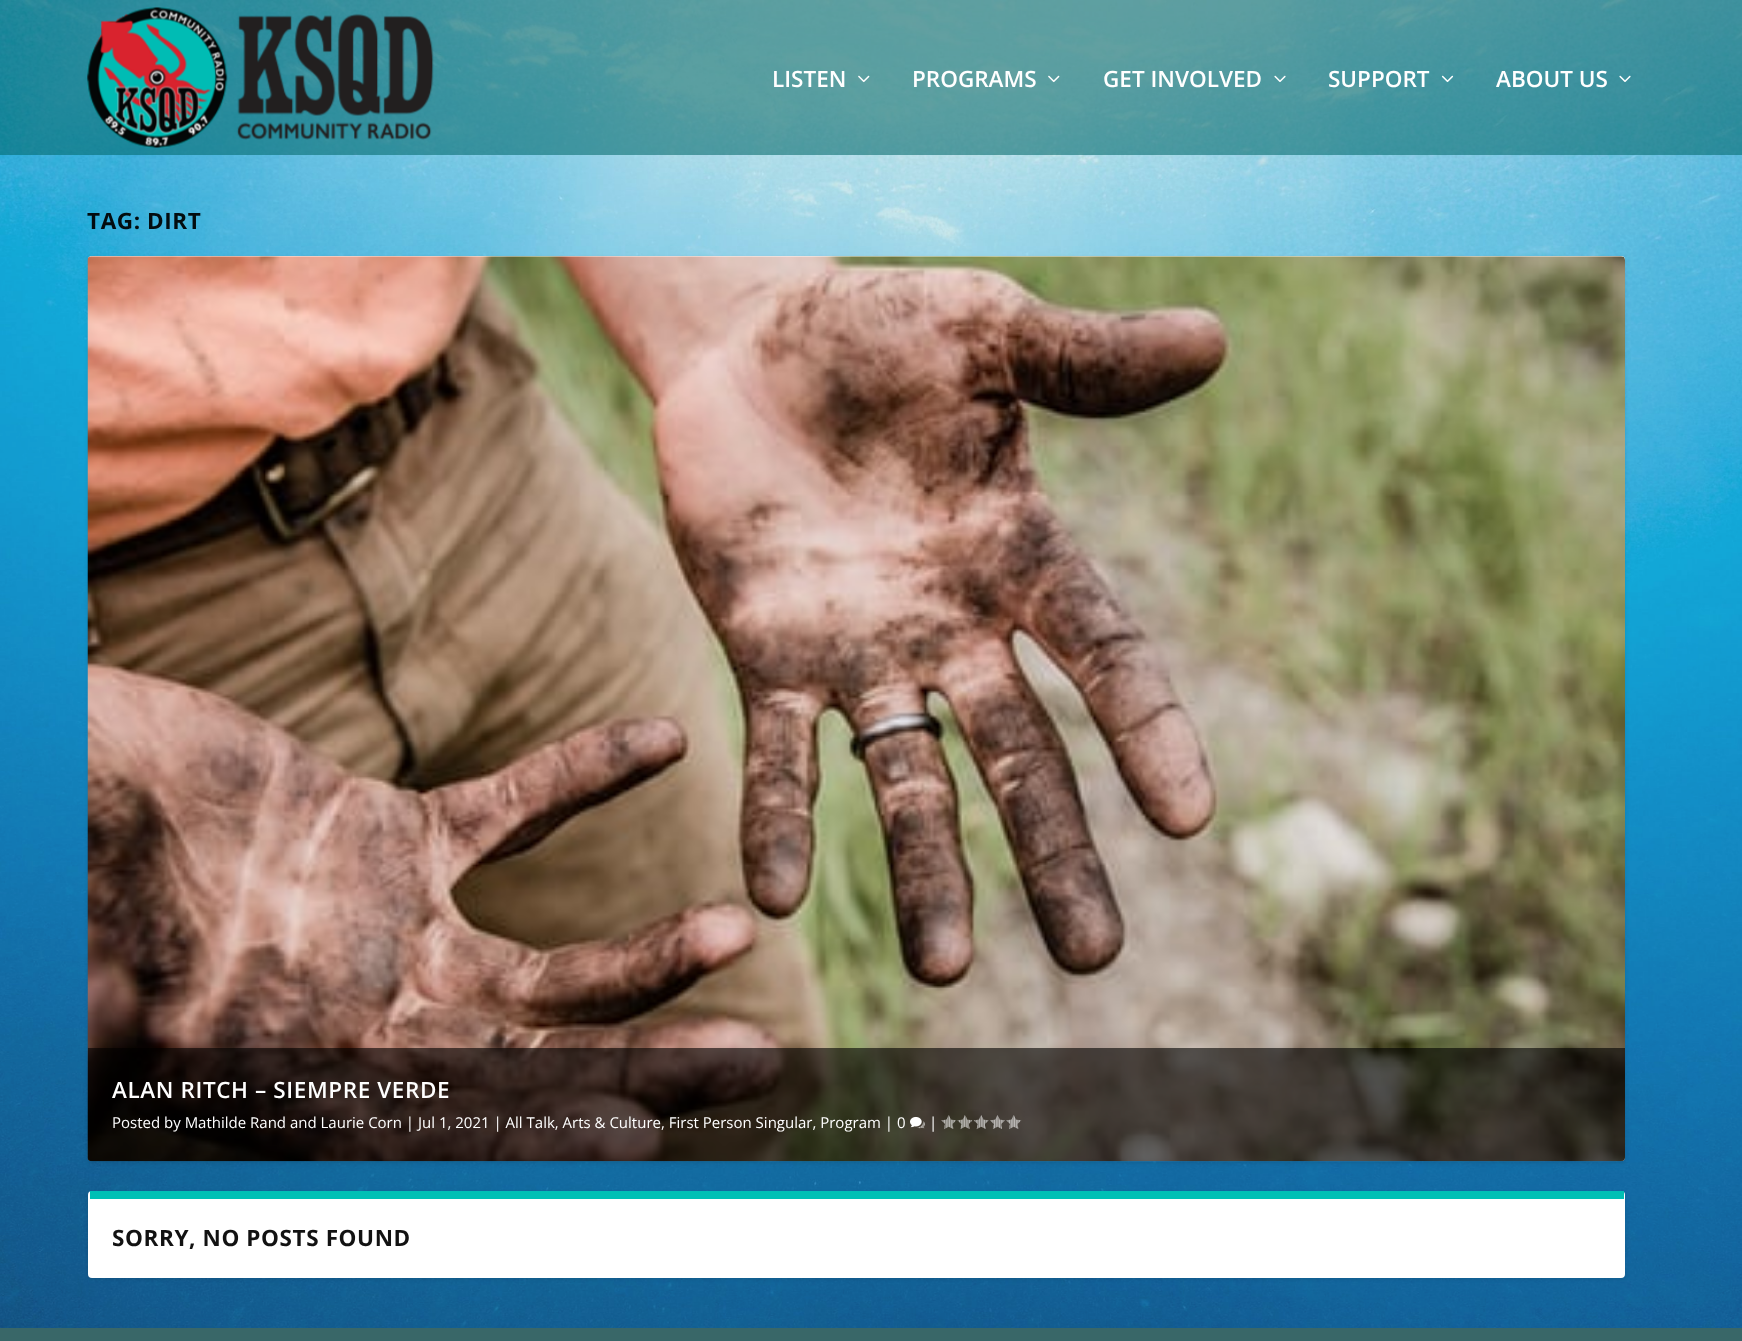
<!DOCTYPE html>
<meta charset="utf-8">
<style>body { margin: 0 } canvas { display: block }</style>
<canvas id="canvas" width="1742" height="1341"></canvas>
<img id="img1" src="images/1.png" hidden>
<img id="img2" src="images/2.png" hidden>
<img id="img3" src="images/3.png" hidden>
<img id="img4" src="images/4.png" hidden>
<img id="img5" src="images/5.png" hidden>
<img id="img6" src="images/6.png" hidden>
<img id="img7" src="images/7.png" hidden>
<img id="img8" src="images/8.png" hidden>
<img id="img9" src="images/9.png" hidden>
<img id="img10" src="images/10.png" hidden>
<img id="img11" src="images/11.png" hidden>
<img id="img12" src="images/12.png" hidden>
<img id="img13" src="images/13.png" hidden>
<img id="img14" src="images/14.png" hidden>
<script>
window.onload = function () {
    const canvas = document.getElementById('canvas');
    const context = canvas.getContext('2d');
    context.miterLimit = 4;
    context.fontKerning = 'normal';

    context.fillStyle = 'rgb(255, 255, 255)';
    context.fillRect(0, 0, 1742, 1341);
    context.drawImage(document.getElementById('img1'), 0, 0, 1742, 1328);
    context.fillStyle = 'rgba(0, 102, 104, 0.56)';
    context.fillRect(0, 0, 1742, 155);
    context.drawImage(document.getElementById('img2'), 87, 7, 347, 141);
    context.drawImage(document.getElementById('img3'), 858, 75, 12, 8);
    context.drawImage(document.getElementById('img4'), 1048, 75, 12, 8);
    context.drawImage(document.getElementById('img5'), 1274, 75, 12, 7);
    context.drawImage(document.getElementById('img6'), 1441, 75, 13, 8);
    context.drawImage(document.getElementById('img7'), 1619, 75, 12, 7);
    context.fillStyle = 'rgba(0, 0, 0, 0.1)';
    context.filter = 'blur(2px)';
    context.beginPath();
    context.roundRect(88, 258, 1537, 905, 4);
    context.fill();
    context.filter = 'none';
    context.fillStyle = 'rgb(255, 255, 255)';
    context.beginPath();
    context.roundRect(88, 256, 1537, 905, 4);
    context.fill();
    context.drawImage(document.getElementById('img8'), 87, 256, 1538, 906);
    context.fillStyle = 'rgba(0, 0, 0, 0.6)';
    context.beginPath();
    context.roundRect(88, 1048, 1537, 113, [0, 0, 4, 4]);
    context.fill();
    context.drawImage(document.getElementById('img9'), 910, 1116, 15, 13);
    context.drawImage(document.getElementById('img10'), 941, 1115, 16, 15);
    context.drawImage(document.getElementById('img11'), 957, 1115, 16, 15);
    context.drawImage(document.getElementById('img12'), 973, 1115, 16, 15);
    context.drawImage(document.getElementById('img13'), 990, 1115, 15, 14);
    context.drawImage(document.getElementById('img14'), 1006, 1115, 16, 15);
    context.fillStyle = 'rgba(0, 0, 0, 0.1)';
    context.filter = 'blur(2px)';
    context.beginPath();
    context.roundRect(88, 1193, 1537, 86, 4);
    context.fill();
    context.filter = 'none';
    context.fillStyle = 'rgb(255, 255, 255)';
    context.beginPath();
    context.roundRect(88, 1191, 1537, 87, 4);
    context.fill();
    context.fillStyle = 'rgb(0, 192, 181)';
    context.fillRect(90, 1191, 1534, 8);
    context.fillStyle = 'rgb(57, 103, 104)';
    context.fillRect(0, 1328, 1742, 13);
    context.font = '600 22.5px Open Sans';
    context.fillStyle = 'rgb(255, 255, 255)';
    context.fillText('LISTEN', 772, 87);
    context.fillText('PROGRAMS', 912, 87);
    context.fillText('GET INVOLVED', 1103, 87);
    context.fillText('SUPPORT', 1328, 87);
    context.fillText('ABOUT US', 1496, 87);
    context.letterSpacing = '0.6px';
    context.font = 'bold 22.5px Open Sans';
    context.fillStyle = 'rgb(3, 12, 15)';
    context.fillText('TAG:', 87, 229);
    context.fillText('DIRT', 147, 229);
    context.font = '600 22.5px Open Sans';
    context.fillStyle = 'rgb(255, 255, 255)';
    context.fillText('ALAN RITCH – SIEMPRE VERDE', 112, 1098);
    context.letterSpacing = '0px';
    context.font = '15px Open Sans';
    context.fillText('Posted by Mathilde Rand and Laurie Corn | Jul 1, 2021 | All Talk, Arts & Culture, First Person Singular, Program | 0', 112, 1128);
    context.fillText('|', 929, 1128);
    context.letterSpacing = '0.6px';
    context.font = 'bold 22.5px Open Sans';
    context.fillStyle = 'rgb(18, 18, 18)';
    context.fillText('SORRY, NO POSTS FOUND', 112, 1246);
};
</script>
